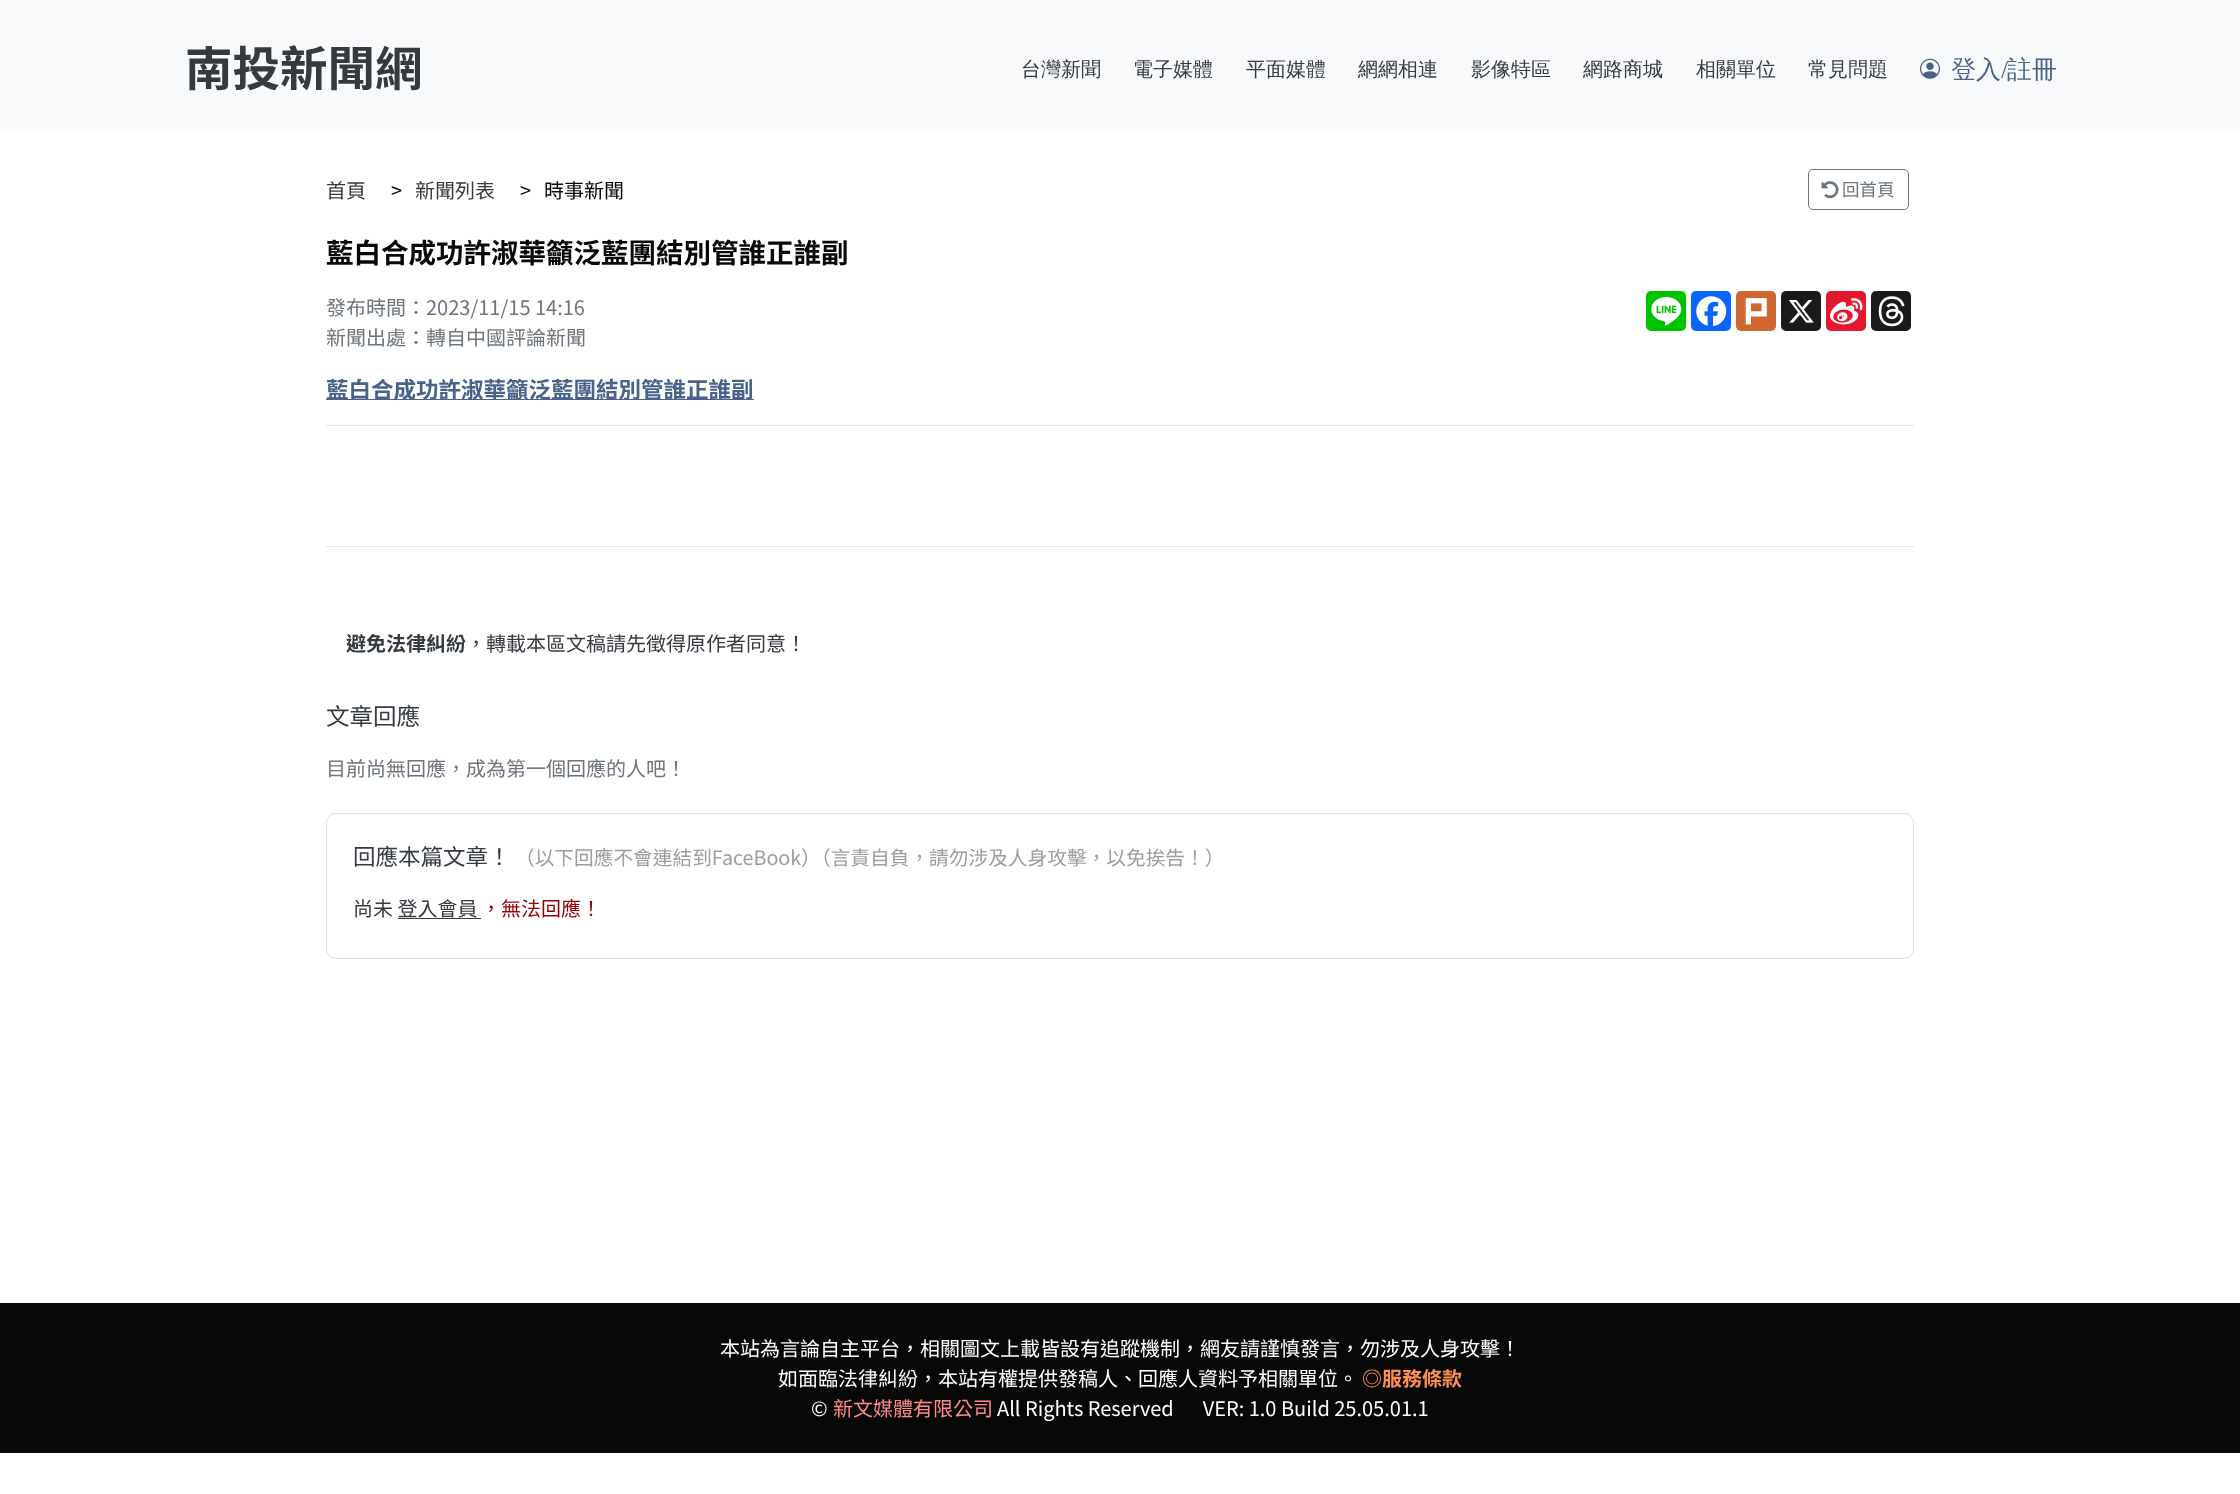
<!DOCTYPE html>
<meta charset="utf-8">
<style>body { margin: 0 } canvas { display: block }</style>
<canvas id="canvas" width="2240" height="1494"></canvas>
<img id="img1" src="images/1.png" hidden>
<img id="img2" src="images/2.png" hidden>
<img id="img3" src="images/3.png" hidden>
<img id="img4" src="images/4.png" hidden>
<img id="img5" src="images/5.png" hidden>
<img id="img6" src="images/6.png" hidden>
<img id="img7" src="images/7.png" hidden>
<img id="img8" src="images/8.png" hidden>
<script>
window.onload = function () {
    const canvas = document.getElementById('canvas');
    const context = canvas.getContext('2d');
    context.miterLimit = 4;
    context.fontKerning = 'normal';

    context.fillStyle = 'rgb(255, 255, 255)';
    context.fillRect(0, 0, 2240, 1494);
    context.fillStyle = 'rgb(248, 249, 250)';
    context.fillRect(0, 0, 2240, 131);
    context.drawImage(document.getElementById('img1'), 1920, 58, 20, 21);
    context.beginPath();
    context.roundRect(1808.5, 169.5, 100, 40, 4.5);
    context.strokeStyle = 'rgb(108, 117, 125)';
    context.stroke();
    context.drawImage(document.getElementById('img2'), 1821, 181, 18, 18);
    context.fillStyle = 'rgb(0, 195, 0)';
    context.beginPath();
    context.roundRect(1646, 291, 40, 40, 5);
    context.fill();
    context.drawImage(document.getElementById('img3'), 1651, 297, 31, 29);
    context.fillStyle = 'rgb(8, 102, 255)';
    context.beginPath();
    context.roundRect(1691, 291, 40, 40, 5);
    context.fill();
    context.drawImage(document.getElementById('img4'), 1696, 296, 31, 31);
    context.fillStyle = 'rgb(207, 104, 47)';
    context.beginPath();
    context.roundRect(1736, 291, 40, 40, 5);
    context.fill();
    context.drawImage(document.getElementById('img5'), 1745, 298, 22, 27);
    context.fillStyle = 'rgb(26, 26, 26)';
    context.beginPath();
    context.roundRect(1781, 291, 40, 40, 5);
    context.fill();
    context.drawImage(document.getElementById('img6'), 1788, 300, 26, 23);
    context.fillStyle = 'rgb(230, 22, 45)';
    context.beginPath();
    context.roundRect(1826, 291, 40, 40, 5);
    context.fill();
    context.drawImage(document.getElementById('img7'), 1830, 298, 33, 27);
    context.fillStyle = 'rgb(26, 26, 26)';
    context.beginPath();
    context.roundRect(1871, 291, 40, 40, 5);
    context.fill();
    context.drawImage(document.getElementById('img8'), 1878, 296, 27, 31);
    context.fillStyle = 'rgb(74, 98, 138)';
    context.fillRect(326, 399, 428, 1);
    context.fillStyle = 'rgb(230, 230, 230)';
    context.fillRect(326, 425, 1588, 1);
    context.fillRect(326, 546, 1588, 1);
    context.beginPath();
    context.roundRect(326.5, 813.5, 1587, 145, 9.5);
    context.strokeStyle = 'rgb(224, 224, 224)';
    context.stroke();
    context.fillStyle = 'rgb(52, 58, 64)';
    context.fillRect(398, 918, 83, 1);
    context.fillStyle = 'rgb(8, 8, 8)';
    context.fillRect(0, 1303, 2240, 150);
    context.font = 'bold 47.5px Noto Sans TC';
    context.fillStyle = 'rgb(52, 58, 64)';
    context.fillText('南投新聞網', 185, 86);
    context.font = '500 20px WenQuanYi Zen Hei';
    context.fillText('台灣新聞', 1021, 76);
    context.fillText('電子媒體', 1133, 76);
    context.fillText('平面媒體', 1246, 76);
    context.fillText('網網相連', 1358, 76);
    context.fillText('影像特區', 1471, 76);
    context.fillText('網路商城', 1583, 76);
    context.fillText('相關單位', 1696, 76);
    context.fillText('常見問題', 1808, 76);
    context.font = '500 25px WenQuanYi Zen Hei';
    context.fillStyle = 'rgb(74, 98, 138)';
    context.fillText('登入', 1951, 78);
    context.font = '25px Liberation Serif';
    context.fillText('/', 2001, 78);
    context.font = '500 25px WenQuanYi Zen Hei';
    context.fillText('註冊', 2007, 78);
    context.font = '20px Noto Sans TC';
    context.fillStyle = 'rgb(52, 58, 64)';
    context.fillText('首頁', 326, 198);
    context.fillStyle = 'rgb(8, 8, 8)';
    context.fillText('>', 391, 198);
    context.fillStyle = 'rgb(52, 58, 64)';
    context.fillText('新聞列表', 415, 198);
    context.fillStyle = 'rgb(8, 8, 8)';
    context.fillText('>', 520, 198);
    context.fillText('時事新聞', 544, 198);
    context.font = '17.5px Noto Sans TC';
    context.fillStyle = 'rgb(108, 117, 125)';
    context.fillText('回首頁', 1842, 196);
    context.font = 'bold 27.5px Noto Sans TC';
    context.fillStyle = 'rgb(8, 8, 8)';
    context.fillText('藍白合成功許淑華籲泛藍團結別管誰正誰副', 326, 263);
    context.font = '20px Noto Sans TC';
    context.fillStyle = 'rgb(108, 117, 125)';
    context.fillText('發布時間：2023/11/15 14:16', 326, 315);
    context.fillText('新聞出處：轉自中國評論新聞', 326, 345);
    context.font = 'bold 22.5px Noto Sans TC';
    context.fillStyle = 'rgb(74, 98, 138)';
    context.fillText('藍白合成功許淑華籲泛藍團結別管誰正誰副', 326, 398);
    context.font = 'bold 20px Noto Sans TC';
    context.fillStyle = 'rgb(52, 58, 64)';
    context.fillText('避免法律糾紛', 346, 651);
    context.font = '20px Noto Sans TC';
    context.fillText('，轉載本區文稿請先徵得原作者同意！', 466, 651);
    context.font = '23.5px Noto Sans TC';
    context.fillText('文章回應', 326, 725);
    context.font = '20px Noto Sans TC';
    context.fillStyle = 'rgb(108, 117, 125)';
    context.fillText('目前尚無回應，成為第一個回應的人吧！', 326, 776);
    context.font = '22.5px Noto Sans TC';
    context.fillStyle = 'rgb(52, 58, 64)';
    context.fillText('回應本篇文章！', 353, 865);
    context.font = '19.7px Noto Sans TC';
    context.fillStyle = 'rgb(157, 157, 157)';
    context.fillText('（以下回應不會連結到FaceBook）（言責自負，請勿涉及人身攻擊，以免挨告！）', 515, 865);
    context.font = '20px Noto Sans TC';
    context.fillStyle = 'rgb(52, 58, 64)';
    context.fillText('尚未 登入會員', 353, 916);
    context.fillStyle = 'rgb(151, 0, 0)';
    context.fillText('，無法回應！', 481, 916);
    context.fillStyle = 'rgb(255, 255, 255)';
    context.fillText('本站為言論自主平台，相關圖文上載皆設有追蹤機制，網友請謹慎發言，勿涉及人身攻擊！', 720, 1356);
    context.fillText('如面臨法律糾紛，本站有權提供發稿人、回應人資料予相關單位。', 778, 1386);
    context.font = 'bold 20px Noto Sans TC';
    context.fillStyle = 'rgb(252, 143, 84)';
    context.fillText('◎服務條款', 1362, 1386);
    context.font = '20px Noto Sans TC';
    context.fillStyle = 'rgb(255, 255, 255)';
    context.fillText('©', 811, 1416);
    context.fillStyle = 'rgb(255, 138, 138)';
    context.fillText('新文媒體有限公司', 833, 1416);
    context.fillStyle = 'rgb(255, 255, 255)';
    context.fillText('All Rights Reserved   VER: 1.0 Build 25.05.01.1', 997, 1416);
};
</script>
